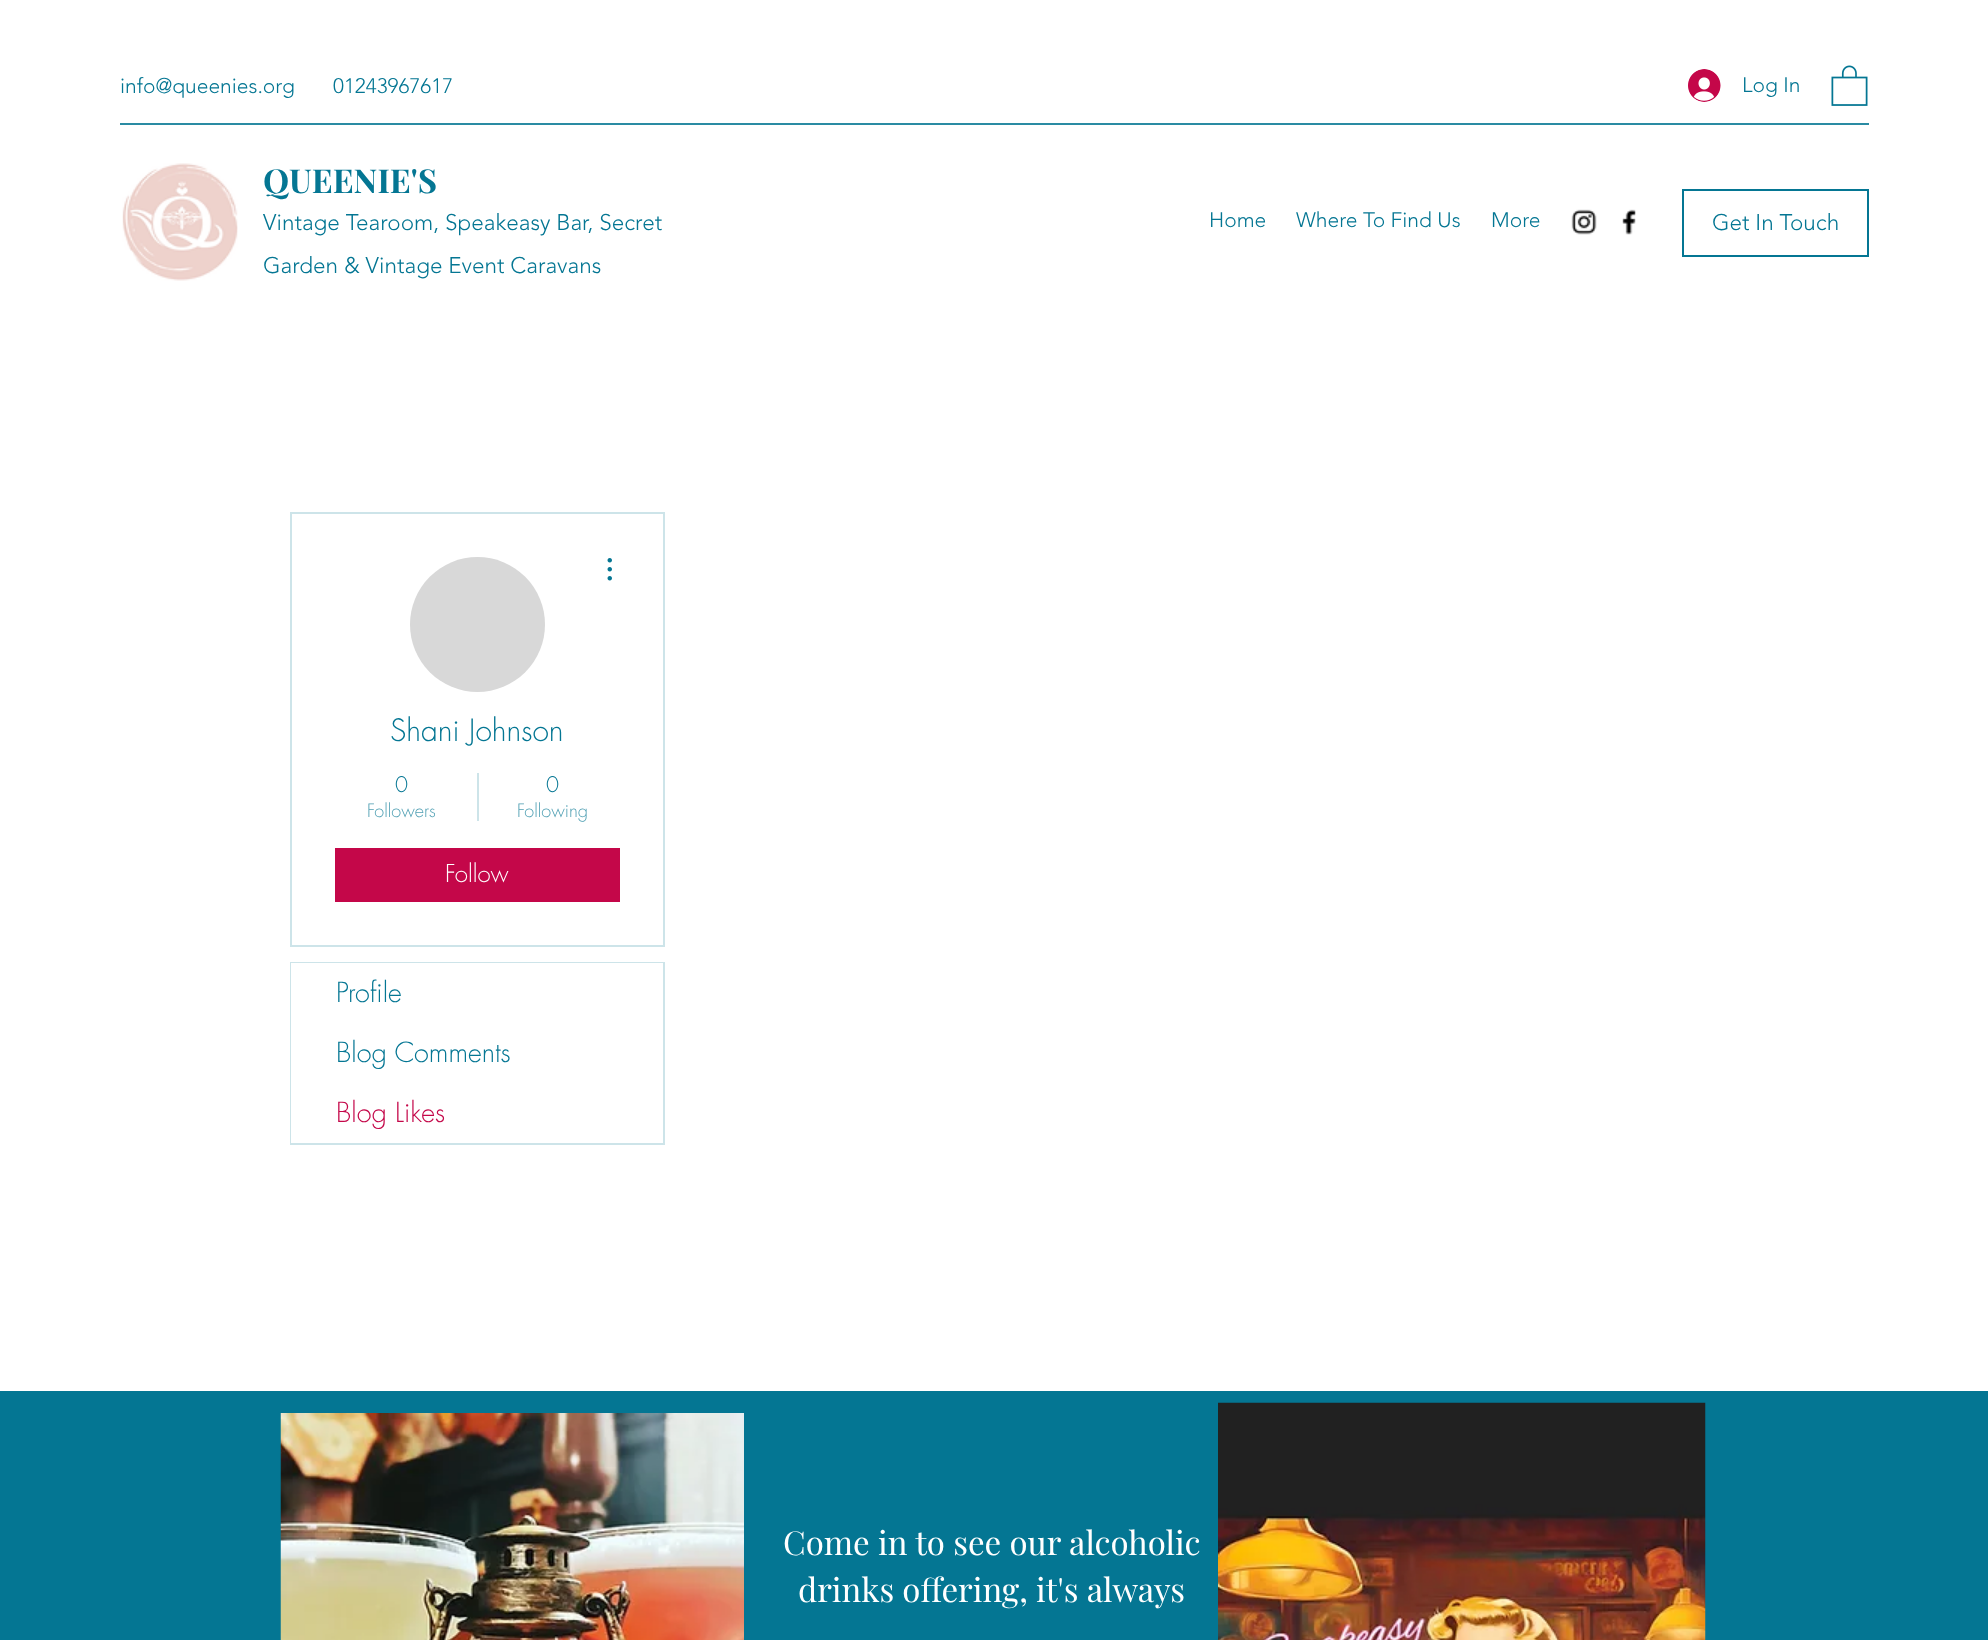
<!DOCTYPE html>
<meta charset="utf-8">
<style>body { margin: 0 } canvas { display: block }</style>
<canvas id="canvas" width="1988" height="1640"></canvas>
<img id="img1" src="images/1.png" hidden>
<img id="img2" src="images/2.png" hidden>
<img id="img3" src="images/3.png" hidden>
<img id="img4" src="images/4.png" hidden>
<img id="img5" src="images/5.png" hidden>
<img id="img6" src="images/6.png" hidden>
<img id="img7" src="images/7.png" hidden>
<img id="img8" src="images/8.png" hidden>
<script>
window.onload = function () {
    const canvas = document.getElementById('canvas');
    const context = canvas.getContext('2d');
    context.miterLimit = 4;
    context.fontKerning = 'normal';

    context.fillStyle = 'rgb(255, 255, 255)';
    context.fillRect(0, 0, 1988, 1640);
    context.drawImage(document.getElementById('img1'), 1688, 69, 33, 33);
    context.drawImage(document.getElementById('img2'), 1831, 65, 37, 41);
    context.fillStyle = 'rgb(42, 139, 163)';
    context.fillRect(120, 123, 1749, 2);
    context.drawImage(document.getElementById('img3'), 122, 163, 116, 118);
    context.drawImage(document.getElementById('img4'), 1571, 209, 26, 26);
    context.drawImage(document.getElementById('img5'), 1622, 209, 14, 26);
    context.strokeStyle = 'rgb(4, 118, 147)';
    context.lineWidth = 2;
    context.strokeRect(1683, 190, 185, 66);
    context.strokeStyle = 'rgb(205, 228, 233)';
    context.strokeRect(291, 513, 373, 433);
    context.fillStyle = 'rgb(216, 216, 216)';
    context.beginPath();
    context.arc(477.5, 624.5, 67.5, 0, 2 * Math.PI);
    context.fill();
    context.drawImage(document.getElementById('img6'), 607, 558, 5, 23);
    context.fillStyle = 'rgb(205, 228, 233)';
    context.fillRect(477, 773, 2, 48);
    context.fillStyle = 'rgb(196, 7, 73)';
    context.fillRect(335, 848, 285, 54);
    context.strokeRect(291, 963, 373, 181);
    context.fillStyle = 'rgb(255, 255, 255)';
    context.fillRect(291, 963, 372, 60);
    context.fillRect(291, 1023, 1, 120);
    context.fillStyle = 'rgb(4, 118, 147)';
    context.fillRect(0, 1391, 1988, 249);
    context.drawImage(document.getElementById('img7'), 280, 1413, 464, 227);
    context.drawImage(document.getElementById('img8'), 1218, 1402, 488, 238);
    context.font = '300 21px "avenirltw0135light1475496"';
    context.fillText('info@queenies.org', 120, 93);
    context.fillText('01243967617', 333, 93);
    context.fillText('Log In', 1742, 92);
    context.font = 'bold 33px Playfair Display';
    context.fillText('QUEENIE\'S', 263, 193);
    context.font = '300 22.5px "avenirltw0135light1475496"';
    context.fillText('Vintage Tearoom, Speakeasy Bar, Secret', 263, 230);
    context.fillText('Garden & Vintage Event Caravans', 263, 273);
    context.font = '300 21px "avenirltw0135light1475496"';
    context.fillText('Home', 1209, 227);
    context.fillText('Where To Find Us', 1296, 227);
    context.fillText('More', 1491, 227);
    context.font = '300 22.5px "avenirltw0135light1475496"';
    context.fillText('Get In Touch', 1712, 230);
    context.font = '300 30px futura';
    context.fillText('Shani Johnson', 390, 741);
    context.font = '300 21px futura';
    context.fillText('0', 395, 792);
    context.font = '300 18px futura';
    context.fillStyle = 'rgb(79, 159, 179)';
    context.fillText('Followers', 367, 817);
    context.font = '300 21px futura';
    context.fillStyle = 'rgb(4, 118, 147)';
    context.fillText('0', 546, 792);
    context.font = '300 18px futura';
    context.fillStyle = 'rgb(79, 159, 179)';
    context.fillText('Following', 517, 817);
    context.font = '300 24px futura';
    context.fillStyle = 'rgb(255, 255, 255)';
    context.fillText('Follow', 445, 882);
    context.font = '300 27px futura';
    context.fillStyle = 'rgb(4, 118, 147)';
    context.fillText('Profile', 336, 1002);
    context.fillText('Blog Comments', 336, 1062);
    context.fillStyle = 'rgb(196, 7, 73)';
    context.fillText('Blog Likes', 336, 1122);
    context.font = '33px Playfair Display';
    context.fillStyle = 'rgb(255, 255, 255)';
    context.fillText('Come in to see our alcoholic', 783, 1555);
    context.fillText('drinks offering, it\'s always', 798, 1602);
};
</script>
